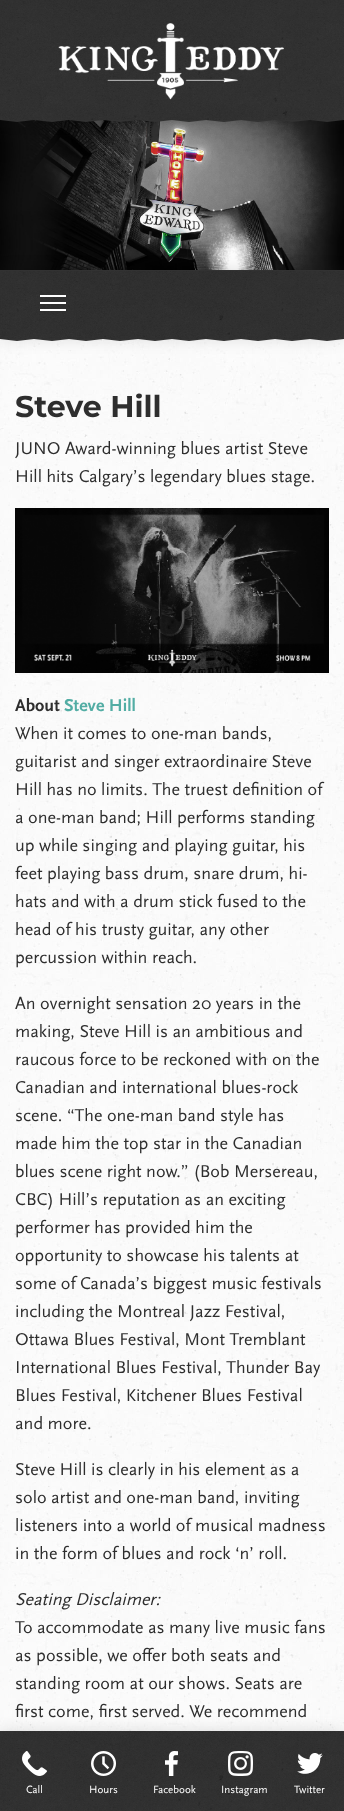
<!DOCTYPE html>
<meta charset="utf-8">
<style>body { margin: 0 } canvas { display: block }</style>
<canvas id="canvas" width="344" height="1811"></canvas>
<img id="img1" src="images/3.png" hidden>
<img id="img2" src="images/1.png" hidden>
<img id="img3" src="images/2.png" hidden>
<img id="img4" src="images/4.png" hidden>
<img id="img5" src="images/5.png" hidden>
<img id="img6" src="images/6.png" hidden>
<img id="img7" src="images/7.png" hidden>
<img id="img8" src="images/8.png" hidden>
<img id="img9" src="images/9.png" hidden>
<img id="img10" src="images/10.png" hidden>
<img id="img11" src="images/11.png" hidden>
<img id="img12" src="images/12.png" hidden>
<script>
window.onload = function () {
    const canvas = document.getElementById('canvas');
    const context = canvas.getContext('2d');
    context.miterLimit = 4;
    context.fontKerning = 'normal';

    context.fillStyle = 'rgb(255, 255, 255)';
    context.fillRect(0, 0, 344, 1811);
    context.drawImage(document.getElementById('img1'), 0, 120, 344, 150);
    context.fillStyle = 'rgba(0, 0, 0, 0.12)';
    context.filter = 'blur(7.5px)';
    context.beginPath();
    context.rect(0, 0, 344, 120);
    context.fill();
    context.filter = 'none';
    context.drawImage(document.getElementById('img2'), 0, 0, 344, 120);
    context.drawImage(document.getElementById('img3'), 58, 23, 226, 77);
    context.fillStyle = 'rgb(50, 50, 50)';
    context.beginPath();
    context.moveTo(0, 120);
    context.lineTo(17, 122);
    context.lineTo(34, 120);
    context.lineTo(52, 122);
    context.lineTo(69, 120);
    context.closePath();
    context.moveTo(103, 120);
    context.lineTo(69, 120);
    context.lineTo(86, 122);
    context.closePath();
    context.moveTo(138, 120);
    context.lineTo(103, 120);
    context.lineTo(120, 122);
    context.closePath();
    context.moveTo(172, 120);
    context.lineTo(138, 120);
    context.lineTo(155, 122);
    context.closePath();
    context.moveTo(206, 120);
    context.lineTo(172, 120);
    context.lineTo(189, 122);
    context.closePath();
    context.moveTo(241, 120);
    context.lineTo(206, 120);
    context.lineTo(224, 122);
    context.closePath();
    context.moveTo(275, 120);
    context.lineTo(241, 120);
    context.lineTo(258, 122);
    context.closePath();
    context.moveTo(310, 120);
    context.lineTo(275, 120);
    context.lineTo(292, 122);
    context.closePath();
    context.moveTo(344, 120);
    context.lineTo(310, 120);
    context.lineTo(327, 122);
    context.closePath();
    context.fill('evenodd');
    context.drawImage(document.getElementById('img4'), 0, 339, 344, 1392);
    context.fillStyle = 'rgba(0, 0, 0, 0.12)';
    context.filter = 'blur(7.5px)';
    context.beginPath();
    context.rect(0, 270, 344, 69);
    context.fill();
    context.filter = 'none';
    context.drawImage(document.getElementById('img5'), 0, 271, 344, 68);
    context.fillStyle = 'rgb(50, 50, 50)';
    context.fillRect(0, 270, 344, 1);
    context.fillStyle = 'rgb(255, 255, 255)';
    context.fillRect(40, 295, 26, 2);
    context.fillRect(40, 302, 26, 2);
    context.fillRect(40, 309, 26, 2);
    context.fillStyle = 'rgb(50, 50, 50)';
    context.beginPath();
    context.moveTo(0, 339);
    context.lineTo(17, 341);
    context.lineTo(34, 339);
    context.lineTo(52, 341);
    context.lineTo(69, 339);
    context.closePath();
    context.moveTo(103, 339);
    context.lineTo(69, 339);
    context.lineTo(86, 341);
    context.closePath();
    context.moveTo(138, 339);
    context.lineTo(103, 339);
    context.lineTo(120, 341);
    context.closePath();
    context.moveTo(172, 339);
    context.lineTo(138, 339);
    context.lineTo(155, 341);
    context.closePath();
    context.moveTo(206, 339);
    context.lineTo(172, 339);
    context.lineTo(189, 341);
    context.closePath();
    context.moveTo(241, 339);
    context.lineTo(206, 339);
    context.lineTo(224, 341);
    context.closePath();
    context.moveTo(275, 339);
    context.lineTo(241, 339);
    context.lineTo(258, 341);
    context.closePath();
    context.moveTo(310, 339);
    context.lineTo(275, 339);
    context.lineTo(292, 341);
    context.closePath();
    context.moveTo(344, 339);
    context.lineTo(310, 339);
    context.lineTo(327, 341);
    context.closePath();
    context.fill('evenodd');
    context.drawImage(document.getElementById('img6'), 15, 508, 314, 165);
    context.fillStyle = 'rgba(0, 0, 0, 0.12)';
    context.filter = 'blur(7.5px)';
    context.beginPath();
    context.rect(0, 1731, 344, 80);
    context.fill();
    context.filter = 'none';
    context.drawImage(document.getElementById('img7'), 0, 1731, 344, 80);
    context.drawImage(document.getElementById('img8'), 22, 1751, 25, 25);
    context.drawImage(document.getElementById('img9'), 91, 1751, 25, 25);
    context.drawImage(document.getElementById('img10'), 165, 1751, 13, 25);
    context.drawImage(document.getElementById('img11'), 228, 1751, 25, 25);
    context.drawImage(document.getElementById('img12'), 297, 1753, 26, 21);
    context.font = 'bold 30px Montserrat';
    context.fillStyle = 'rgb(46, 46, 46)';
    context.fillText('Steve Hill', 15, 417);
    context.font = '18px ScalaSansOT';
    context.fillText('JUNO Award-winning blues artist Steve', 15, 454);
    context.fillText('Hill hits Calgary’s legendary blues stage.', 15, 482);
    context.font = 'bold 18px ScalaSansOT';
    context.fillText('About', 15, 711);
    context.fillStyle = 'rgb(82, 173, 164)';
    context.fillText('Steve Hill', 64, 711);
    context.font = '18px ScalaSansOT';
    context.fillStyle = 'rgb(46, 46, 46)';
    context.fillText('When it comes to one-man bands,', 15, 739);
    context.fillText('guitarist and singer extraordinaire Steve', 15, 767);
    context.fillText('Hill has no limits. The truest definition of', 15, 795);
    context.fillText('a one-man band; Hill performs standing', 15, 823);
    context.fillText('up while singing and playing guitar, his', 15, 851);
    context.fillText('feet playing bass drum, snare drum, hi-', 15, 879);
    context.fillText('hats and with a drum stick fused to the', 15, 907);
    context.fillText('head of his trusty guitar, any other', 15, 935);
    context.fillText('percussion within reach.', 15, 963);
    context.fillText('An overnight sensation 20 years in the', 15, 1009);
    context.fillText('making, Steve Hill is an ambitious and', 15, 1037);
    context.fillText('raucous force to be reckoned with on the', 15, 1065);
    context.fillText('Canadian and international blues-rock', 15, 1093);
    context.fillText('scene. “The one-man band style has', 15, 1121);
    context.fillText('made him the top star in the Canadian', 15, 1149);
    context.fillText('blues scene right now.” (Bob Mersereau,', 15, 1177);
    context.fillText('CBC) Hill’s reputation as an exciting', 15, 1205);
    context.fillText('performer has provided him the', 15, 1233);
    context.fillText('opportunity to showcase his talents at', 15, 1261);
    context.fillText('some of Canada’s biggest music festivals', 15, 1289);
    context.fillText('including the Montreal Jazz Festival,', 15, 1317);
    context.fillText('Ottawa Blues Festival, Mont Tremblant', 15, 1345);
    context.fillText('International Blues Festival, Thunder Bay', 15, 1373);
    context.fillText('Blues Festival, Kitchener Blues Festival', 15, 1401);
    context.fillText('and more.', 15, 1429);
    context.fillText('Steve Hill is clearly in his element as a', 15, 1475);
    context.fillText('solo artist and one-man band, inviting', 15, 1503);
    context.fillText('listeners into a world of musical madness', 15, 1531);
    context.fillText('in the form of blues and rock ‘n’ roll.', 15, 1559);
    context.font = 'italic 18px ScalaSansOT';
    context.fillText('Seating Disclaimer:', 15, 1605);
    context.font = '18px ScalaSansOT';
    context.fillText('To accommodate as many live music fans', 15, 1633);
    context.fillText('as possible, we offer both seats and', 15, 1661);
    context.fillText('standing room at our shows. Seats are', 15, 1689);
    context.fillText('first come, first served. We recommend', 15, 1717);
    context.font = '11px ScalaSansOT';
    context.fillStyle = 'rgb(255, 255, 255)';
    context.fillText('Call', 26, 1793);
    context.fillText('Hours', 89, 1793);
    context.fillText('Facebook', 153, 1793);
    context.fillText('Instagram', 221, 1793);
    context.fillText('Twitter', 294, 1793);
};
</script>
